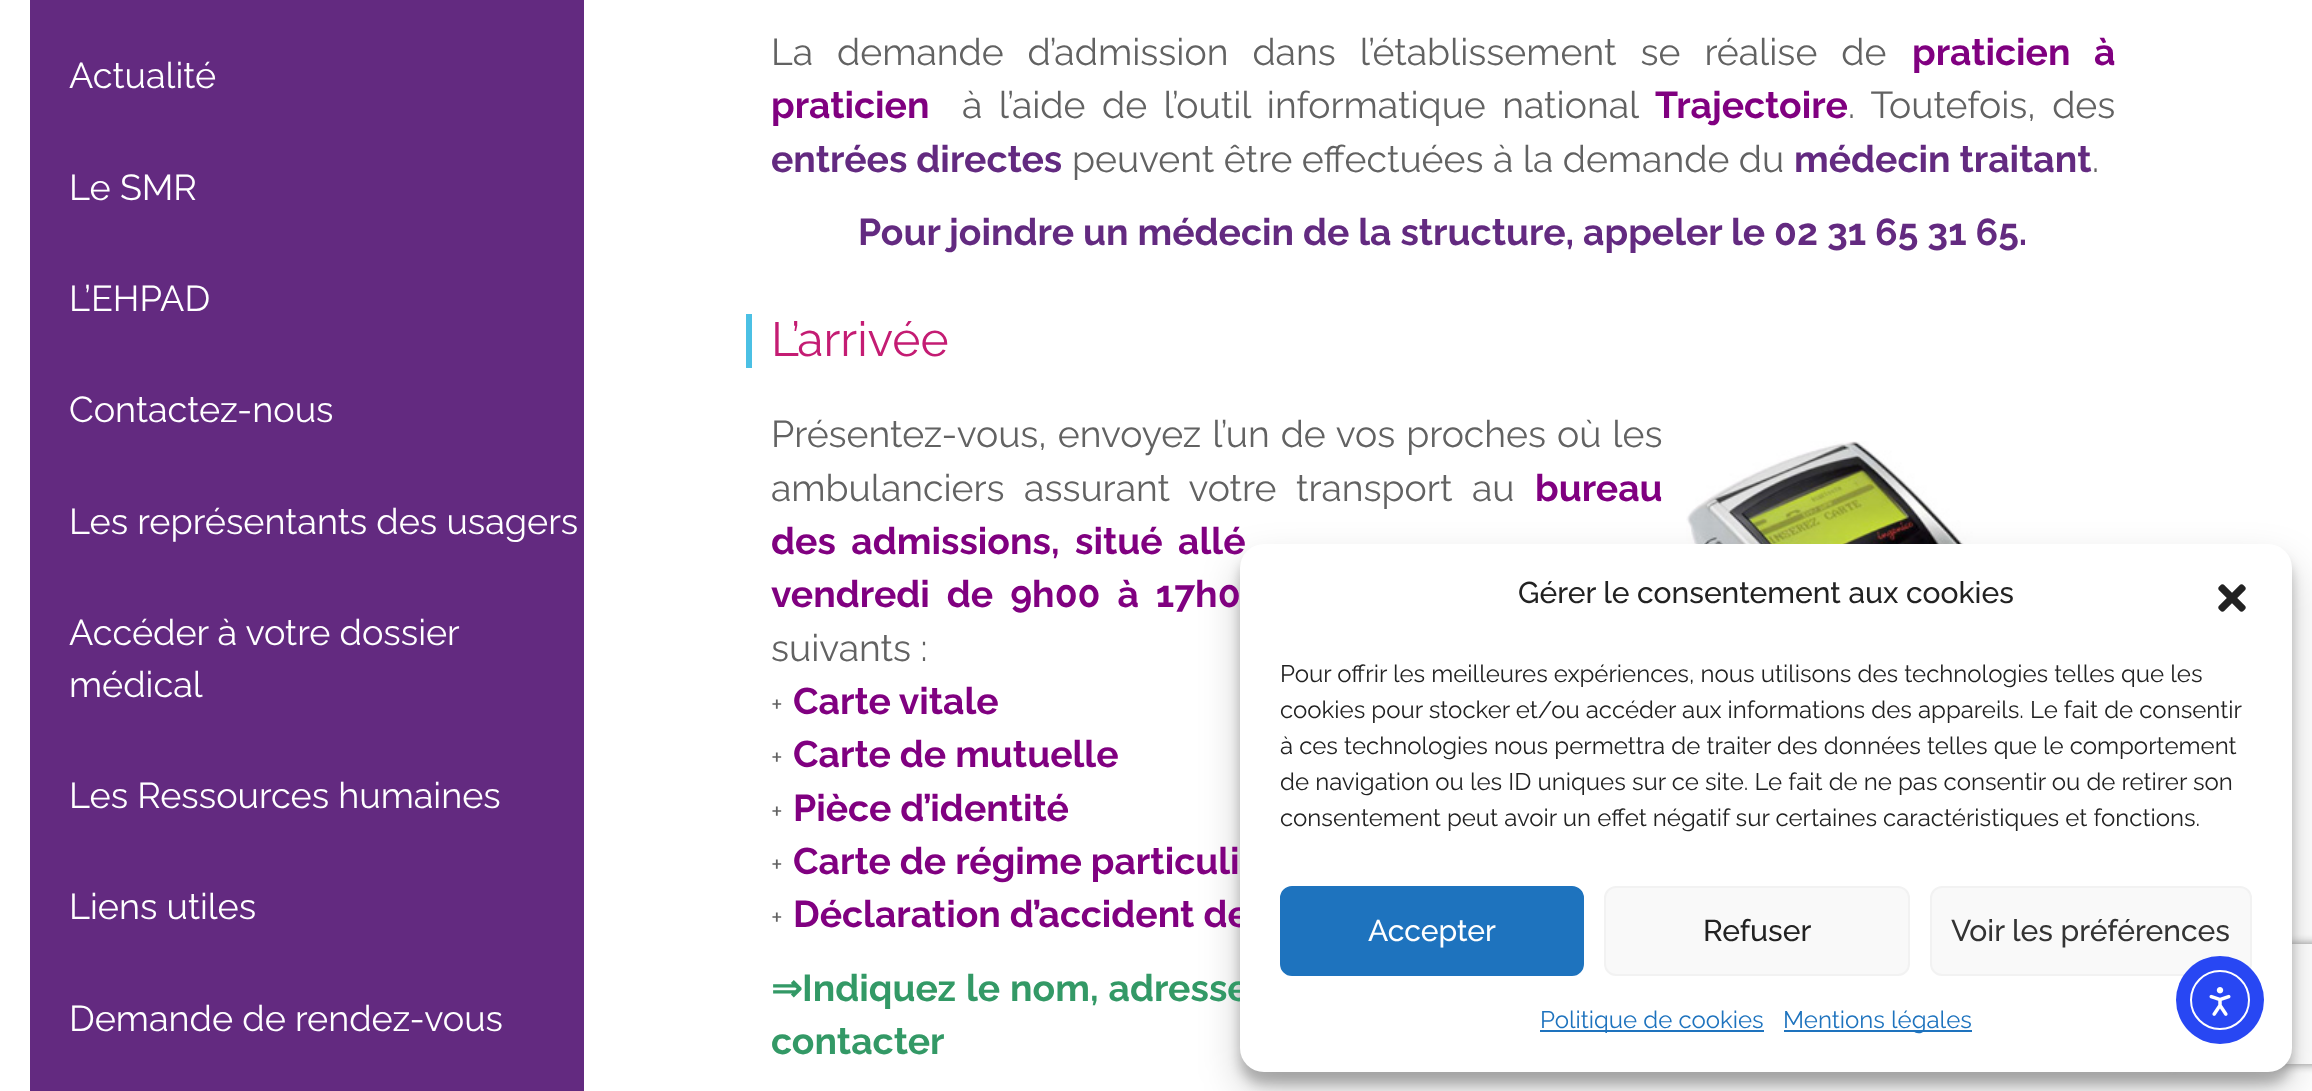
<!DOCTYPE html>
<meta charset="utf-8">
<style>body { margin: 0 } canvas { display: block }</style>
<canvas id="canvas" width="2312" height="1091"></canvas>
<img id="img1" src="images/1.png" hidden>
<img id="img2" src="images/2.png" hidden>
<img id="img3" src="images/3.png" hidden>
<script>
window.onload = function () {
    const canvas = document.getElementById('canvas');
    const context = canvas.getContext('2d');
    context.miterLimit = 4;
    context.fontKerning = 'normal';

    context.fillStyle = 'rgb(255, 255, 255)';
    context.fillRect(0, 0, 2312, 1091);
    context.fillStyle = 'rgb(99, 42, 128)';
    context.fillRect(30, 0, 554, 1091);
    context.fillStyle = 'rgb(75, 192, 228)';
    context.fillRect(746, 314, 6, 54);
    context.drawImage(document.getElementById('img1'), 1686, 441, 430, 103);
    context.fillStyle = 'rgba(0, 0, 0, 0.23)';
    context.filter = 'blur(6px)';
    context.beginPath();
    context.roundRect(1240, 556, 1052, 528, 24);
    context.fill();
    context.filter = 'none';
    context.fillStyle = 'rgba(0, 0, 0, 0.19)';
    context.filter = 'blur(20px)';
    context.beginPath();
    context.roundRect(1240, 564, 1052, 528, 24);
    context.fill();
    context.filter = 'none';
    context.save();
    context.beginPath();
    context.moveTo(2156, 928);
    context.lineTo(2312, 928);
    context.lineTo(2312, 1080);
    context.lineTo(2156, 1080);
    context.closePath();
    context.moveTo(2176, 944);
    context.lineTo(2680, 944);
    context.bezierCurveTo(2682, 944, 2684, 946, 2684, 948);
    context.lineTo(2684, 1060);
    context.bezierCurveTo(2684, 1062, 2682, 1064, 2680, 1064);
    context.lineTo(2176, 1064);
    context.bezierCurveTo(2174, 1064, 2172, 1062, 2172, 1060);
    context.lineTo(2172, 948);
    context.bezierCurveTo(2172, 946, 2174, 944, 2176, 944);
    context.closePath();
    context.clip('evenodd');
    context.fillStyle = 'rgb(128, 128, 128)';
    context.filter = 'blur(5px)';
    context.beginPath();
    context.roundRect(2172, 944, 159, 120, 4);
    context.fill();
    context.filter = 'none';
    context.restore();
    context.font = '36px Raleway';
    context.fillStyle = 'rgb(255, 255, 255)';
    context.fillText('Actualité', 69, 88);
    context.fillText('Le SMR', 69, 200);
    context.fillText('L’EHPAD', 69, 311);
    context.fillText('Contactez-nous', 69, 422);
    context.fillText('Les représentants des usagers', 69, 534);
    context.fillText('Accéder à votre dossier', 69, 645);
    context.fillText('médical', 69, 697);
    context.fillText('Les Ressources humaines', 69, 808);
    context.fillText('Liens utiles', 69, 919);
    context.fillText('Demande de rendez-vous', 69, 1031);
    context.wordSpacing = '14.5px';
    context.font = '37.3px Raleway';
    context.fillStyle = 'rgb(98, 98, 98)';
    context.fillText('La demande d’admission dans l’établissement se réalise de', 771, 65);
    context.font = 'bold 37.3px Raleway';
    context.fillStyle = 'rgb(128, 0, 128)';
    context.fillText('praticien à', 1912, 65);
    context.wordSpacing = '0px';
    context.fillText('praticien', 771, 118);
    context.wordSpacing = '7px';
    context.font = '37.3px Raleway';
    context.fillStyle = 'rgb(98, 98, 98)';
    context.fillText('à l’aide de l’outil informatique national', 962, 118);
    context.wordSpacing = '0px';
    context.font = 'bold 37.3px Raleway';
    context.fillStyle = 'rgb(128, 0, 128)';
    context.fillText('Trajectoire', 1655, 118);
    context.wordSpacing = '7px';
    context.font = '37.3px Raleway';
    context.fillStyle = 'rgb(98, 98, 98)';
    context.fillText('. Toutefois, des', 1848, 118);
    context.wordSpacing = '0px';
    context.font = 'bold 37.3px Raleway';
    context.fillStyle = 'rgb(99, 42, 128)';
    context.fillText('entrées directes', 771, 172);
    context.font = '37.3px Raleway';
    context.fillStyle = 'rgb(98, 98, 98)';
    context.fillText('peuvent être effectuées à la demande du', 1072, 172);
    context.font = 'bold 37.3px Raleway';
    context.fillStyle = 'rgb(99, 42, 128)';
    context.fillText('médecin traitant', 1794, 172);
    context.font = '37.3px Raleway';
    context.fillStyle = 'rgb(98, 98, 98)';
    context.fillText('.', 2092, 172);
    context.font = 'bold 37.3px Raleway';
    context.fillStyle = 'rgb(99, 42, 128)';
    context.fillText('Pour joindre un médecin de la structure, appeler le 02 31 65 31 65.', 858, 245);
    context.font = '48px Raleway';
    context.fillStyle = 'rgb(196, 28, 115)';
    context.fillText('L’arrivée', 771, 356);
    context.wordSpacing = '1.5px';
    context.font = '37.3px Raleway';
    context.fillStyle = 'rgb(98, 98, 98)';
    context.fillText('Présentez-vous, envoyez l’un de vos proches où les', 771, 447);
    context.wordSpacing = '10px';
    context.fillText('ambulanciers assurant votre transport au', 771, 501);
    context.wordSpacing = '0px';
    context.font = 'bold 37.3px Raleway';
    context.fillStyle = 'rgb(128, 0, 128)';
    context.fillText('bureau', 1535, 501);
    context.wordSpacing = '6.5px';
    context.fillText('des admissions, situé allé', 771, 554);
    context.wordSpacing = '8px';
    context.fillText('vendredi de 9h00 à 17h0', 771, 607);
    context.wordSpacing = '0px';
    context.font = '37.3px Raleway';
    context.fillStyle = 'rgb(98, 98, 98)';
    context.fillText('suivants :', 771, 661);
    context.font = '28px Raleway';
    context.fillText('+', 771, 714);
    context.font = 'bold 37.3px Raleway';
    context.fillStyle = 'rgb(128, 0, 128)';
    context.fillText('Carte vitale', 793, 714);
    context.font = '28px Raleway';
    context.fillStyle = 'rgb(98, 98, 98)';
    context.fillText('+', 771, 767);
    context.font = 'bold 37.3px Raleway';
    context.fillStyle = 'rgb(128, 0, 128)';
    context.fillText('Carte de mutuelle', 793, 767);
    context.font = '28px Raleway';
    context.fillStyle = 'rgb(98, 98, 98)';
    context.fillText('+', 771, 821);
    context.font = 'bold 37.3px Raleway';
    context.fillStyle = 'rgb(128, 0, 128)';
    context.fillText('Pièce d’identité', 793, 821);
    context.font = '28px Raleway';
    context.fillStyle = 'rgb(98, 98, 98)';
    context.fillText('+', 771, 874);
    context.font = 'bold 37.3px Raleway';
    context.fillStyle = 'rgb(128, 0, 128)';
    context.fillText('Carte de régime particuli', 793, 874);
    context.font = '28px Raleway';
    context.fillStyle = 'rgb(98, 98, 98)';
    context.fillText('+', 771, 927);
    context.font = 'bold 37.3px Raleway';
    context.fillStyle = 'rgb(128, 0, 128)';
    context.fillText('Déclaration d’accident de', 793, 927);
    context.font = 'bold 37.3px DejaVu Sans';
    context.fillStyle = 'rgb(51, 153, 102)';
    context.fillText('⇒', 771, 1001);
    context.wordSpacing = '1px';
    context.font = 'bold 37.3px Raleway';
    context.fillText('Indiquez le nom, adresse', 802, 1001);
    context.wordSpacing = '0px';
    context.fillText('contacter', 771, 1054);
    context.fillStyle = 'rgb(255, 255, 255)';
    context.beginPath();
    context.roundRect(1240, 544, 1052, 528, 24);
    context.fill();
    context.font = '500 30px Raleway';
    context.fillStyle = 'rgb(34, 34, 34)';
    context.fillText('Gérer le consentement aux cookies', 1518, 603);
    context.drawImage(document.getElementById('img2'), 2218, 584, 28, 28);
    context.font = '24px Raleway';
    context.fillText('Pour offrir les meilleures expériences, nous utilisons des technologies telles que les', 1280, 682);
    context.fillText('cookies pour stocker et/ou accéder aux informations des appareils. Le fait de consentir', 1280, 718);
    context.fillText('à ces technologies nous permettra de traiter des données telles que le comportement', 1280, 754);
    context.fillText('de navigation ou les ID uniques sur ce site. Le fait de ne pas consentir ou de retirer son', 1280, 790);
    context.fillText('consentement peut avoir un effet négatif sur certaines caractéristiques et fonctions.', 1280, 826);
    context.fillStyle = 'rgb(30, 115, 190)';
    context.beginPath();
    context.roundRect(1281, 887, 302, 88, 11);
    context.fill();
    context.strokeStyle = 'rgb(30, 115, 190)';
    context.lineWidth = 2;
    context.stroke();
    context.font = '500 30px Raleway';
    context.fillStyle = 'rgb(255, 255, 255)';
    context.fillText('Accepter', 1368, 941);
    context.fillStyle = 'rgb(249, 249, 249)';
    context.beginPath();
    context.roundRect(1605, 887, 304, 88, 11);
    context.fill();
    context.strokeStyle = 'rgb(242, 242, 242)';
    context.stroke();
    context.fillStyle = 'rgb(34, 34, 34)';
    context.fillText('Refuser', 1703, 941);
    context.fillStyle = 'rgb(249, 249, 249)';
    context.beginPath();
    context.roundRect(1931, 887, 320, 88, 11);
    context.fill();
    context.stroke();
    context.fillStyle = 'rgb(51, 51, 51)';
    context.fillText('Voir les préférences', 1951, 941);
    context.fillStyle = 'rgb(30, 115, 190)';
    context.fillRect(1540, 1030, 224, 2);
    context.font = '24px Raleway';
    context.fillText('Politique de cookies', 1540, 1028);
    context.fillRect(1784, 1030, 188, 2);
    context.fillText('Mentions légales', 1783, 1028);
    context.fillStyle = 'rgb(40, 71, 243)';
    context.beginPath();
    context.arc(2220, 1000, 44, 0, 2 * Math.PI);
    context.fill();
    context.beginPath();
    context.arc(2220, 1000, 29, 0, 2 * Math.PI);
    context.strokeStyle = 'rgb(255, 255, 255)';
    context.stroke();
    context.drawImage(document.getElementById('img3'), 2209, 987, 22, 29);
};
</script>
